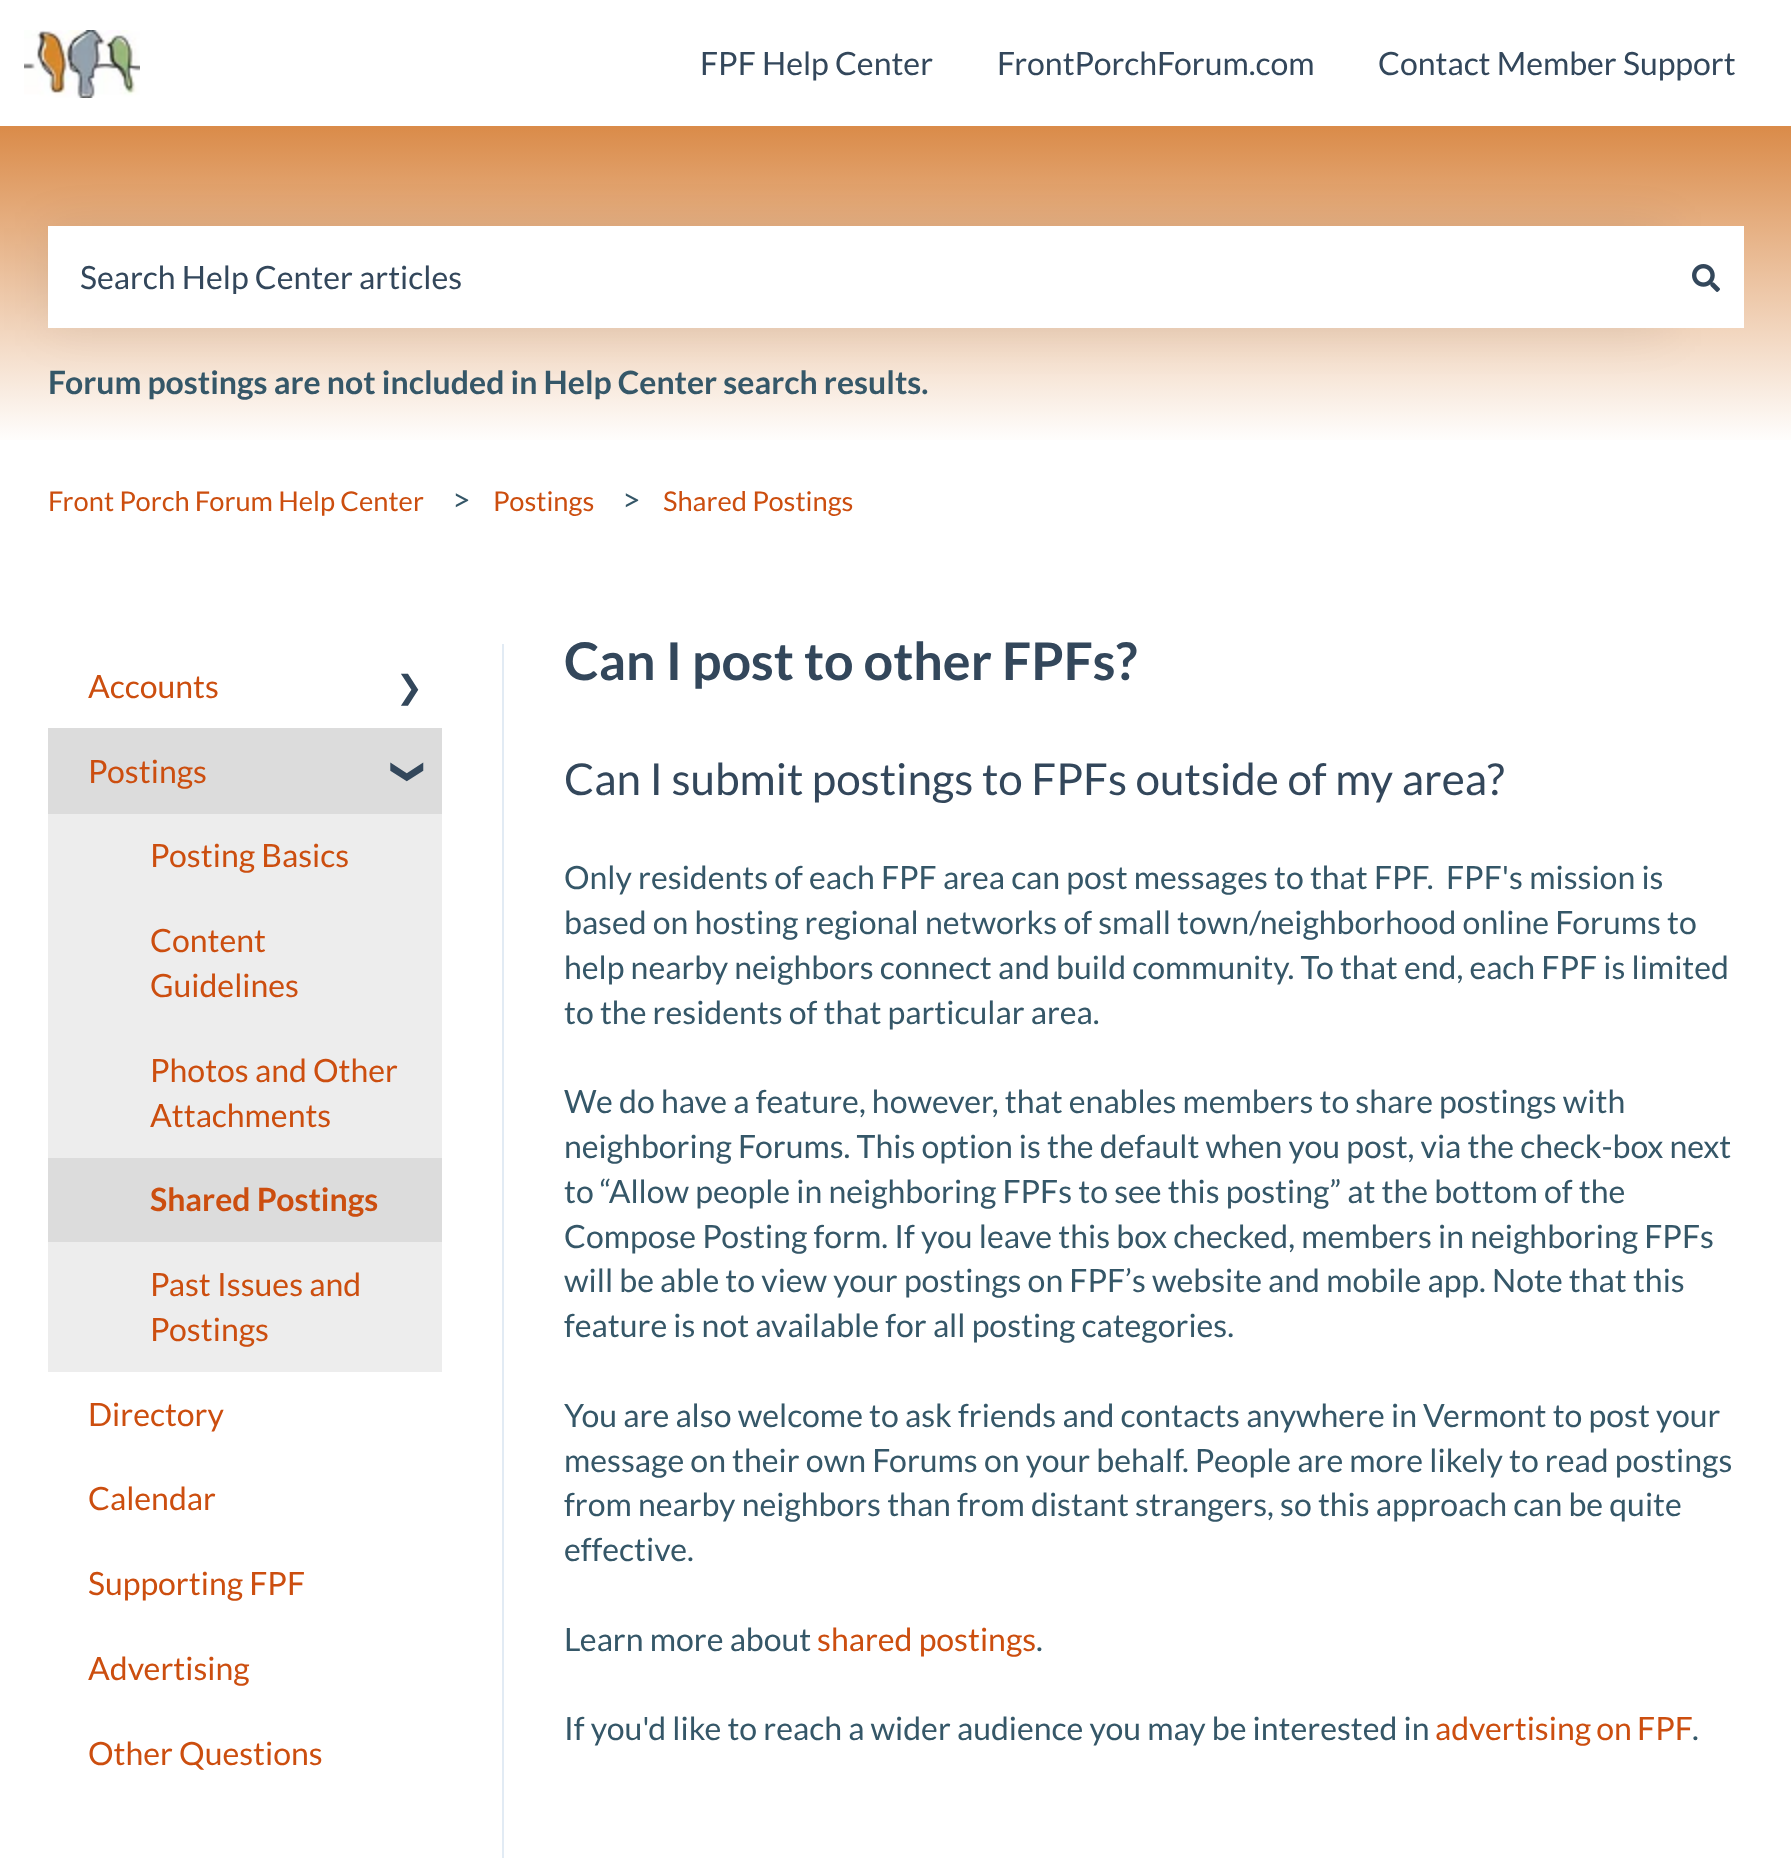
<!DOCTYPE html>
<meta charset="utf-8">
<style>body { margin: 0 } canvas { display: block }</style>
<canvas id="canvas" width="1791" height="1858"></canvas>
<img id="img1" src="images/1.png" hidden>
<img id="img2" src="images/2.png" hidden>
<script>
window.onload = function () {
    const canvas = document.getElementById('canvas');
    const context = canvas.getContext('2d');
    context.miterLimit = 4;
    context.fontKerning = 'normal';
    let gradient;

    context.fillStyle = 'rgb(255, 255, 255)';
    context.fillRect(0, 0, 1791, 1858);
    context.drawImage(document.getElementById('img1'), 24, 30, 116, 68);
    gradient = context.createLinearGradient(896, 126, 896, 454);
    gradient.addColorStop(0, 'rgb(218, 139, 73)');
    gradient.addColorStop(0.97, 'rgb(255, 255, 255)');
    context.fillStyle = gradient;
    context.fillRect(0, 126, 1791, 314);
    context.fillStyle = 'rgba(0, 0, 0, 0.08)';
    context.filter = 'blur(24px)';
    context.beginPath();
    context.rect(48, 228, 1620, 102);
    context.fill();
    context.filter = 'none';
    context.fillStyle = 'rgb(255, 255, 255)';
    context.fillRect(48, 226, 1696, 102);
    context.drawImage(document.getElementById('img2'), 1692, 264, 28, 28);
    context.fillStyle = 'rgb(226, 235, 244)';
    context.fillRect(502, 644, 2, 1214);
    context.fillStyle = 'rgb(237, 237, 237)';
    context.fillRect(48, 814, 394, 558);
    context.fillStyle = 'rgb(220, 220, 220)';
    context.fillRect(48, 728, 394, 86);
    context.fillRect(48, 1158, 394, 84);
    context.font = '32px Lato';
    context.fillStyle = 'rgb(51, 71, 91)';
    context.fillText('FPF Help Center', 700, 75);
    context.fillText('FrontPorchForum.com', 997, 75);
    context.fillText('Contact Member Support', 1378, 75);
    context.save();
    context.beginPath();
    context.rect(80, 256, 1526, 38);
    context.clip();
    context.fillText('Search Help Center articles', 80, 289);
    context.restore();
    context.font = 'bold 32px Lato';
    context.fillStyle = 'rgb(53, 87, 104)';
    context.fillText('Forum postings are not included in Help Center search results.', 48, 394);
    context.font = '27.25px Lato';
    context.fillStyle = 'rgb(204, 78, 15)';
    context.fillText('Front Porch Forum Help Center', 48, 511);
    context.font = '32px Lato';
    context.fillStyle = 'rgb(53, 87, 104)';
    context.fillText('>', 452, 511);
    context.font = '27.25px Lato';
    context.fillStyle = 'rgb(204, 78, 15)';
    context.fillText('Postings', 493, 511);
    context.font = '32px Lato';
    context.fillStyle = 'rgb(53, 87, 104)';
    context.fillText('>', 622, 511);
    context.font = '27.25px Lato';
    context.fillStyle = 'rgb(204, 78, 15)';
    context.fillText('Shared Postings', 663, 511);
    context.font = '32px Lato';
    context.fillText('Accounts', 88, 698);
    context.font = '32px DejaVu Sans';
    context.fillStyle = 'rgb(51, 71, 91)';
    context.fillText('❯', 396, 698);
    context.font = '32px Lato';
    context.fillStyle = 'rgb(204, 78, 15)';
    context.fillText('Postings', 88, 783);
    context.font = 'bold 32px DejaVu Sans';
    context.fillStyle = 'rgb(51, 71, 91)';
    context.save();
    context.translate(398, 758);
    context.rotate(90 * Math.PI / 180);
    context.fillText('❯', 0, 0);
    context.restore();
    context.font = '32px Lato';
    context.fillStyle = 'rgb(204, 78, 15)';
    context.fillText('Posting Basics', 150, 867);
    context.fillText('Content', 150, 952);
    context.fillText('Guidelines', 150, 997);
    context.fillText('Photos and Other', 150, 1082);
    context.fillText('Attachments', 150, 1127);
    context.font = 'bold 32px Lato';
    context.fillText('Shared Postings', 150, 1211);
    context.font = '32px Lato';
    context.fillText('Past Issues and', 150, 1296);
    context.fillText('Postings', 150, 1341);
    context.fillText('Directory', 88, 1426);
    context.fillText('Calendar', 88, 1510);
    context.fillText('Supporting FPF', 88, 1595);
    context.fillText('Advertising', 88, 1680);
    context.fillText('Other Questions', 88, 1765);
    context.font = 'bold 52px Lato';
    context.fillStyle = 'rgb(51, 71, 91)';
    context.fillText('Can I post to other FPFs?', 564, 680);
    context.font = '44px Lato';
    context.fillText('Can I submit postings to FPFs outside of my area?', 564, 795);
    context.font = '32px Lato';
    context.fillStyle = 'rgb(53, 87, 104)';
    context.fillText('Only residents of each FPF area can post messages to that FPF.  FPF\'s mission is', 564, 889);
    context.fillText('based on hosting regional networks of small town/neighborhood online Forums to', 564, 934);
    context.fillText('help nearby neighbors connect and build community. To that end, each FPF is limited', 564, 979);
    context.fillText('to the residents of that particular area.', 564, 1024);
    context.fillText('We do have a feature, however, that enables members to share postings with', 564, 1113);
    context.fillText('neighboring Forums. This option is the default when you post, via the check-box next', 564, 1158);
    context.fillText('to “Allow people in neighboring FPFs to see this posting” at the bottom of the', 564, 1203);
    context.fillText('Compose Posting form. If you leave this box checked, members in neighboring FPFs', 564, 1248);
    context.fillText('will be able to view your postings on FPF’s website and mobile app. Note that this', 564, 1292);
    context.fillText('feature is not available for all posting categories.', 564, 1337);
    context.fillText('You are also welcome to ask friends and contacts anywhere in Vermont to post your', 564, 1427);
    context.fillText('message on their own Forums on your behalf. People are more likely to read postings', 564, 1472);
    context.fillText('from nearby neighbors than from distant strangers, so this approach can be quite', 564, 1516);
    context.fillText('effective.', 564, 1561);
    context.fillText('Learn more about', 564, 1651);
    context.fillStyle = 'rgb(204, 78, 15)';
    context.fillText('shared postings', 817, 1651);
    context.fillStyle = 'rgb(53, 87, 104)';
    context.fillText('.', 1036, 1651);
    context.fillText('If you\'d like to reach a wider audience you may be interested in', 564, 1740);
    context.wordSpacing = '-1px';
    context.fillStyle = 'rgb(204, 78, 15)';
    context.fillText('advertising on FPF', 1435, 1740);
    context.wordSpacing = '0px';
    context.fillStyle = 'rgb(53, 87, 104)';
    context.fillText('.', 1692, 1740);
};
</script>
